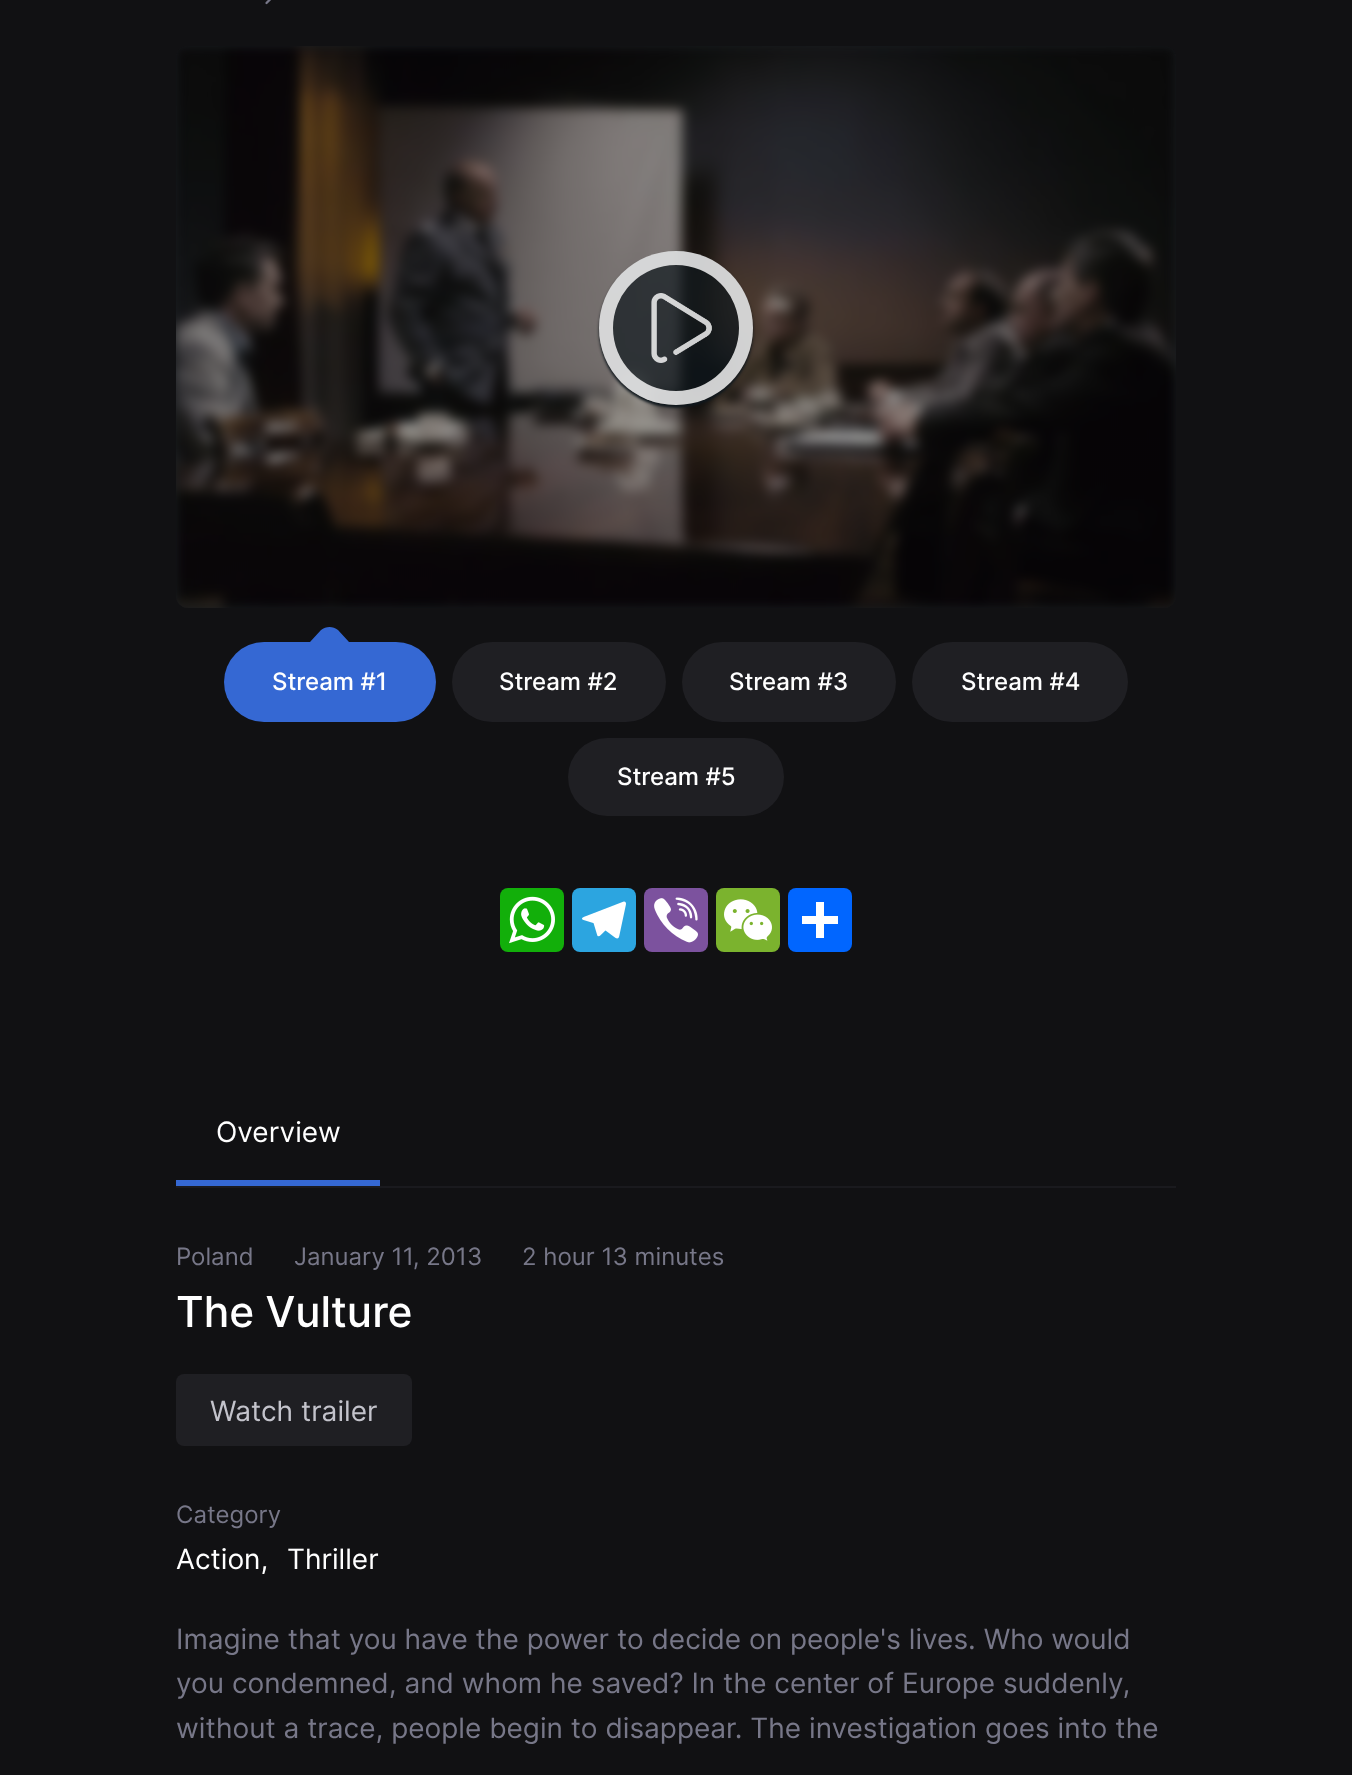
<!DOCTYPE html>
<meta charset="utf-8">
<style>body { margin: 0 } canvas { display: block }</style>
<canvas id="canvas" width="1352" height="1775"></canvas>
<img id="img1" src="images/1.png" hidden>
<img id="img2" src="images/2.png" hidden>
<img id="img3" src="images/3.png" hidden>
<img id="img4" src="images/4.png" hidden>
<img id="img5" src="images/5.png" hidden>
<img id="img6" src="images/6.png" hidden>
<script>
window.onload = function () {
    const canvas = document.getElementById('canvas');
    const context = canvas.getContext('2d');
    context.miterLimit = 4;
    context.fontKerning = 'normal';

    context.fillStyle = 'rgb(17, 17, 19)';
    context.fillRect(0, 0, 1352, 1775);
    context.drawImage(document.getElementById('img1'), 265, 0, 6, 5);
    context.drawImage(document.getElementById('img2'), 176, 46, 1000, 562);
    context.fillStyle = 'rgb(53, 104, 211)';
    context.beginPath();
    context.moveTo(338, 630);
    context.lineTo(349, 642);
    context.bezierCurveTo(354, 646, 354, 654, 349, 659);
    context.lineTo(338, 670);
    context.bezierCurveTo(333, 675, 326, 675, 321, 670);
    context.lineTo(310, 659);
    context.bezierCurveTo(305, 654, 305, 646, 310, 642);
    context.lineTo(321, 630);
    context.bezierCurveTo(326, 626, 333, 626, 338, 630);
    context.closePath();
    context.fill();
    context.beginPath();
    context.roundRect(224, 642, 212, 80, 40);
    context.fill();
    context.fillStyle = 'rgb(31, 31, 35)';
    context.beginPath();
    context.roundRect(452, 642, 214, 80, 40);
    context.fill();
    context.beginPath();
    context.roundRect(682, 642, 214, 80, 40);
    context.fill();
    context.beginPath();
    context.roundRect(912, 642, 216, 80, 40);
    context.fill();
    context.beginPath();
    context.roundRect(568, 738, 216, 78, 39);
    context.fill();
    context.fillStyle = 'rgb(18, 175, 10)';
    context.beginPath();
    context.roundRect(500, 888, 64, 64, 8);
    context.fill();
    context.drawImage(document.getElementById('img3'), 509, 896, 46, 48);
    context.fillStyle = 'rgb(44, 165, 224)';
    context.beginPath();
    context.roundRect(572, 888, 64, 64, 8);
    context.fill();
    context.drawImage(document.getElementById('img4'), 582, 901, 44, 38);
    context.fillStyle = 'rgb(124, 82, 158)';
    context.beginPath();
    context.roundRect(644, 888, 64, 64, 8);
    context.fill();
    context.drawImage(document.getElementById('img5'), 654, 897, 44, 46);
    context.fillStyle = 'rgb(123, 179, 46)';
    context.beginPath();
    context.roundRect(716, 888, 64, 64, 8);
    context.fill();
    context.drawImage(document.getElementById('img6'), 724, 899, 48, 42);
    context.fillStyle = 'rgb(1, 102, 255)';
    context.beginPath();
    context.roundRect(788, 888, 64, 64, 8);
    context.fill();
    context.fillStyle = 'rgb(255, 255, 255)';
    context.fillRect(816, 902, 8, 36);
    context.fillRect(802, 916, 36, 8);
    context.fillStyle = 'rgb(26, 26, 30)';
    context.fillRect(176, 1186, 1000, 2);
    context.fillStyle = 'rgb(53, 104, 211)';
    context.fillRect(176, 1180, 204, 6);
    context.fillStyle = 'rgb(31, 31, 35)';
    context.beginPath();
    context.roundRect(176, 1374, 236, 72, 8);
    context.fill();
    context.font = '500 24px Inter';
    context.fillStyle = 'rgb(255, 255, 255)';
    context.fillText('Stream #1', 272, 690);
    context.fillText('Stream #2', 499, 690);
    context.fillText('Stream #3', 729, 690);
    context.fillText('Stream #4', 961, 690);
    context.fillText('Stream #5', 617, 785);
    context.font = '28px Inter';
    context.fillText('Overview', 216, 1142);
    context.font = '24px Inter';
    context.fillStyle = 'rgb(119, 119, 136)';
    context.fillText('Poland', 176, 1265);
    context.fillText('January 11, 2013', 294, 1265);
    context.fillText('2 hour 13 minutes', 522, 1265);
    context.font = '500 42.5px Inter';
    context.fillStyle = 'rgb(255, 255, 255)';
    context.fillText('The Vulture', 176, 1327);
    context.font = '28px Inter';
    context.fillStyle = 'rgb(195, 195, 203)';
    context.fillText('Watch trailer', 210, 1421);
    context.font = '24px Inter';
    context.fillStyle = 'rgb(119, 119, 136)';
    context.fillText('Category', 176, 1523);
    context.font = '28px Inter';
    context.fillStyle = 'rgb(255, 255, 255)';
    context.fillText('Action,', 176, 1569);
    context.fillText('Thriller', 287, 1569);
    context.fillStyle = 'rgb(119, 119, 136)';
    context.fillText('Imagine that you have the power to decide on people\'s lives. Who would', 176, 1649);
    context.fillText('you condemned, and whom he saved? In the center of Europe suddenly,', 176, 1693);
    context.fillText('without a trace, people begin to disappear. The investigation goes into the', 176, 1738);
};
</script>
